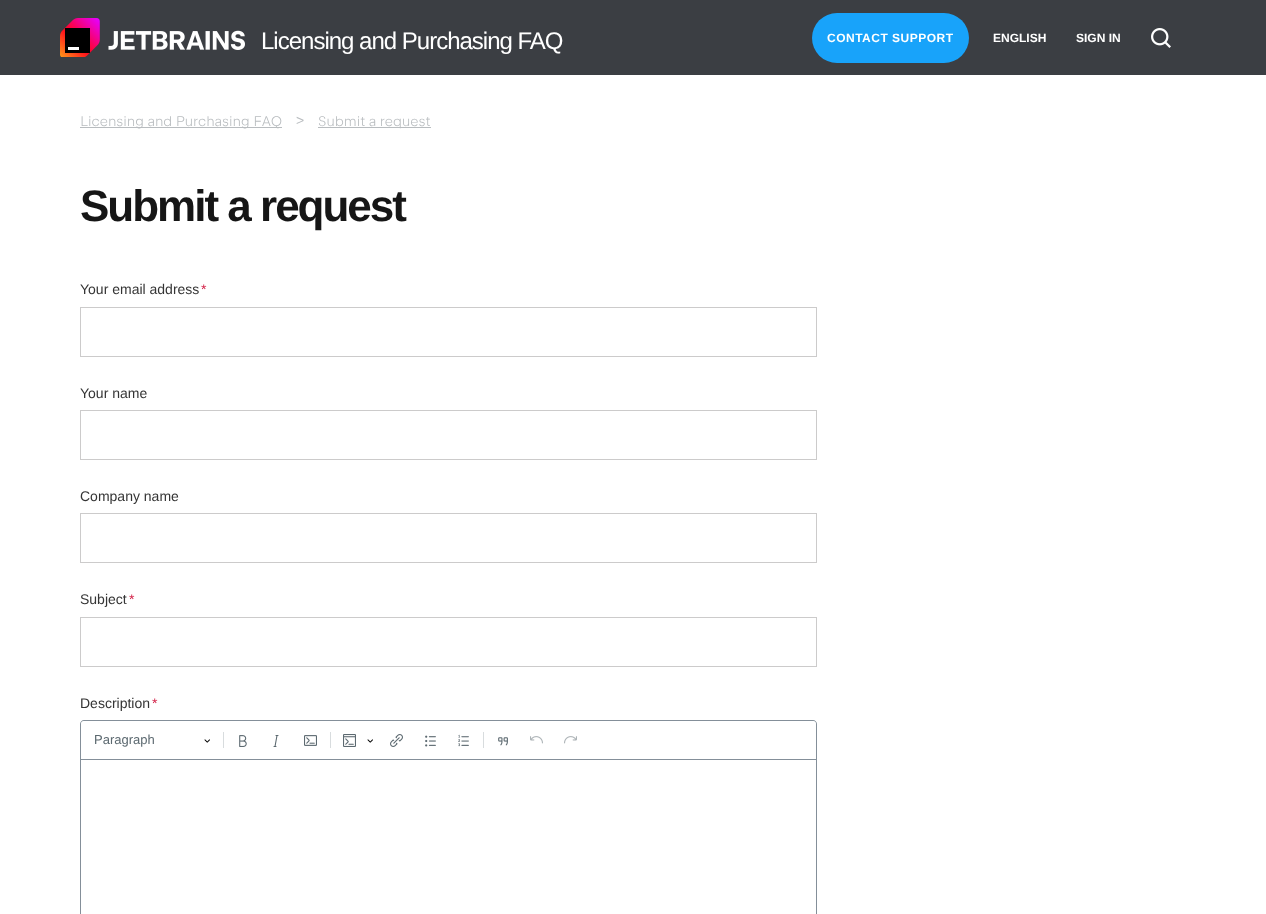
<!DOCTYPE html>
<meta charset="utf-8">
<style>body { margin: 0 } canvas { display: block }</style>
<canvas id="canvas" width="1266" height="914"></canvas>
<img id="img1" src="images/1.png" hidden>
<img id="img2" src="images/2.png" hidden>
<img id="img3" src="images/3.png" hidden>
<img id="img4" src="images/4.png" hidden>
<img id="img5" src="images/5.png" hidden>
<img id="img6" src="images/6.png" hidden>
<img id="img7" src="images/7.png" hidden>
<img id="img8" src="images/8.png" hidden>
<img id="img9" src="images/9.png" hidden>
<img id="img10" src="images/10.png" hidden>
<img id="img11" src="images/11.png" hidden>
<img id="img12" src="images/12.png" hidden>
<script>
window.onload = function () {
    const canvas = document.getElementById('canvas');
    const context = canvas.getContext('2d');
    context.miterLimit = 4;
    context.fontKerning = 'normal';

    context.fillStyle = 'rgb(255, 255, 255)';
    context.fillRect(0, 0, 1266, 914);
    context.fillStyle = 'rgb(59, 62, 67)';
    context.fillRect(0, 0, 1266, 75);
    context.drawImage(document.getElementById('img1'), 60, 18, 185, 39);
    context.fillStyle = 'rgb(24, 163, 250)';
    context.beginPath();
    context.roundRect(812, 13, 157, 50, 25);
    context.fill();
    context.drawImage(document.getElementById('img2'), 1151, 28, 20, 20);
    context.fillStyle = 'rgb(184, 188, 191)';
    context.fillRect(80, 127, 202, 1);
    context.fillRect(318, 127, 113, 1);
    context.strokeStyle = 'rgb(204, 203, 203)';
    context.strokeRect(80.5, 307.5, 736, 49);
    context.strokeRect(80.5, 410.5, 736, 49);
    context.strokeRect(80.5, 513.5, 736, 49);
    context.strokeRect(80.5, 617.5, 736, 49);
    context.fillStyle = 'rgb(132, 143, 153)';
    context.beginPath();
    context.moveTo(84, 720);
    context.lineTo(813, 720);
    context.bezierCurveTo(815, 720, 817, 722, 817, 724);
    context.lineTo(817, 759);
    context.lineTo(80, 759);
    context.lineTo(80, 724);
    context.bezierCurveTo(80, 722, 82, 720, 84, 720);
    context.closePath();
    context.moveTo(84, 721);
    context.lineTo(813, 721);
    context.bezierCurveTo(815, 721, 816, 722, 816, 724);
    context.lineTo(816, 759);
    context.lineTo(81, 759);
    context.lineTo(81, 724);
    context.bezierCurveTo(81, 722, 82, 721, 84, 721);
    context.closePath();
    context.fill('evenodd');
    context.fillStyle = 'rgb(255, 255, 255)';
    context.beginPath();
    context.roundRect(81, 721, 735, 38, 4);
    context.fill();
    context.drawImage(document.getElementById('img3'), 204, 739, 6, 4);
    context.fillStyle = 'rgb(216, 220, 222)';
    context.fillRect(223, 732, 1, 16);
    context.drawImage(document.getElementById('img4'), 239, 735, 8, 12);
    context.beginPath();
    context.moveTo(276, 735.5);
    context.lineTo(278, 735.5);
    context.moveTo(277, 735.5);
    context.lineTo(275, 746.5);
    context.moveTo(274, 746.5);
    context.lineTo(276, 746.5);
    context.strokeStyle = 'rgb(92, 105, 112)';
    context.lineWidth = 1.1;
    context.lineCap = 'round';
    context.stroke();
    context.drawImage(document.getElementById('img5'), 304, 735, 13, 11);
    context.fillRect(330, 732, 1, 16);
    context.drawImage(document.getElementById('img6'), 343, 734, 13, 13);
    context.drawImage(document.getElementById('img3'), 367, 739, 6, 4);
    context.drawImage(document.getElementById('img7'), 390, 734, 13, 13);
    context.drawImage(document.getElementById('img8'), 425, 735, 11, 12);
    context.drawImage(document.getElementById('img9'), 458, 734, 11, 13);
    context.fillRect(483, 732, 1, 16);
    context.drawImage(document.getElementById('img10'), 498, 737, 10, 9);
    context.drawImage(document.getElementById('img11'), 530, 736, 13, 8);
    context.drawImage(document.getElementById('img12'), 564, 736, 13, 8);
    context.strokeStyle = 'rgb(132, 143, 153)';
    context.lineWidth = 1;
    context.strokeRect(80.5, 759.5, 736, 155);
    context.letterSpacing = '-1px';
    context.font = '24px Liberation Sans';
    context.fillStyle = 'rgb(255, 255, 255)';
    context.fillText('Licensing and Purchasing FAQ', 261, 49);
    context.letterSpacing = '0.5px';
    context.font = 'bold 12px Liberation Sans';
    context.fillText('CONTACT SUPPORT', 827, 42);
    context.letterSpacing = '0px';
    context.fillText('ENGLISH', 993, 42);
    context.fillText('SIGN IN', 1076, 42);
    context.font = '300 14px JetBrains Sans';
    context.fillStyle = 'rgb(184, 188, 191)';
    context.fillText('Licensing and Purchasing FAQ', 80, 126);
    context.font = '14px Liberation Sans';
    context.fillText('>', 296, 125);
    context.font = '300 14px JetBrains Sans';
    context.fillText('Submit a request', 318, 126);
    context.letterSpacing = '-2px';
    context.font = 'bold 44px Liberation Sans';
    context.fillStyle = 'rgb(22, 22, 22)';
    context.fillText('Submit a request', 80, 221);
    context.letterSpacing = '0px';
    context.font = '14px Liberation Sans';
    context.fillStyle = 'rgb(52, 52, 52)';
    context.fillText('Your email address', 80, 294);
    context.fillStyle = 'rgb(209, 23, 63)';
    context.fillText('*', 201, 294);
    context.fillStyle = 'rgb(52, 52, 52)';
    context.fillText('Your name', 80, 398);
    context.fillText('Company name', 80, 501);
    context.fillText('Subject', 80, 604);
    context.fillStyle = 'rgb(209, 23, 63)';
    context.fillText('*', 129, 604);
    context.fillStyle = 'rgb(52, 52, 52)';
    context.fillText('Description', 80, 708);
    context.fillStyle = 'rgb(209, 23, 63)';
    context.fillText('*', 152, 708);
    context.font = '13px Liberation Sans';
    context.fillStyle = 'rgb(92, 105, 112)';
    context.fillText('Paragraph', 94, 744);
};
</script>
